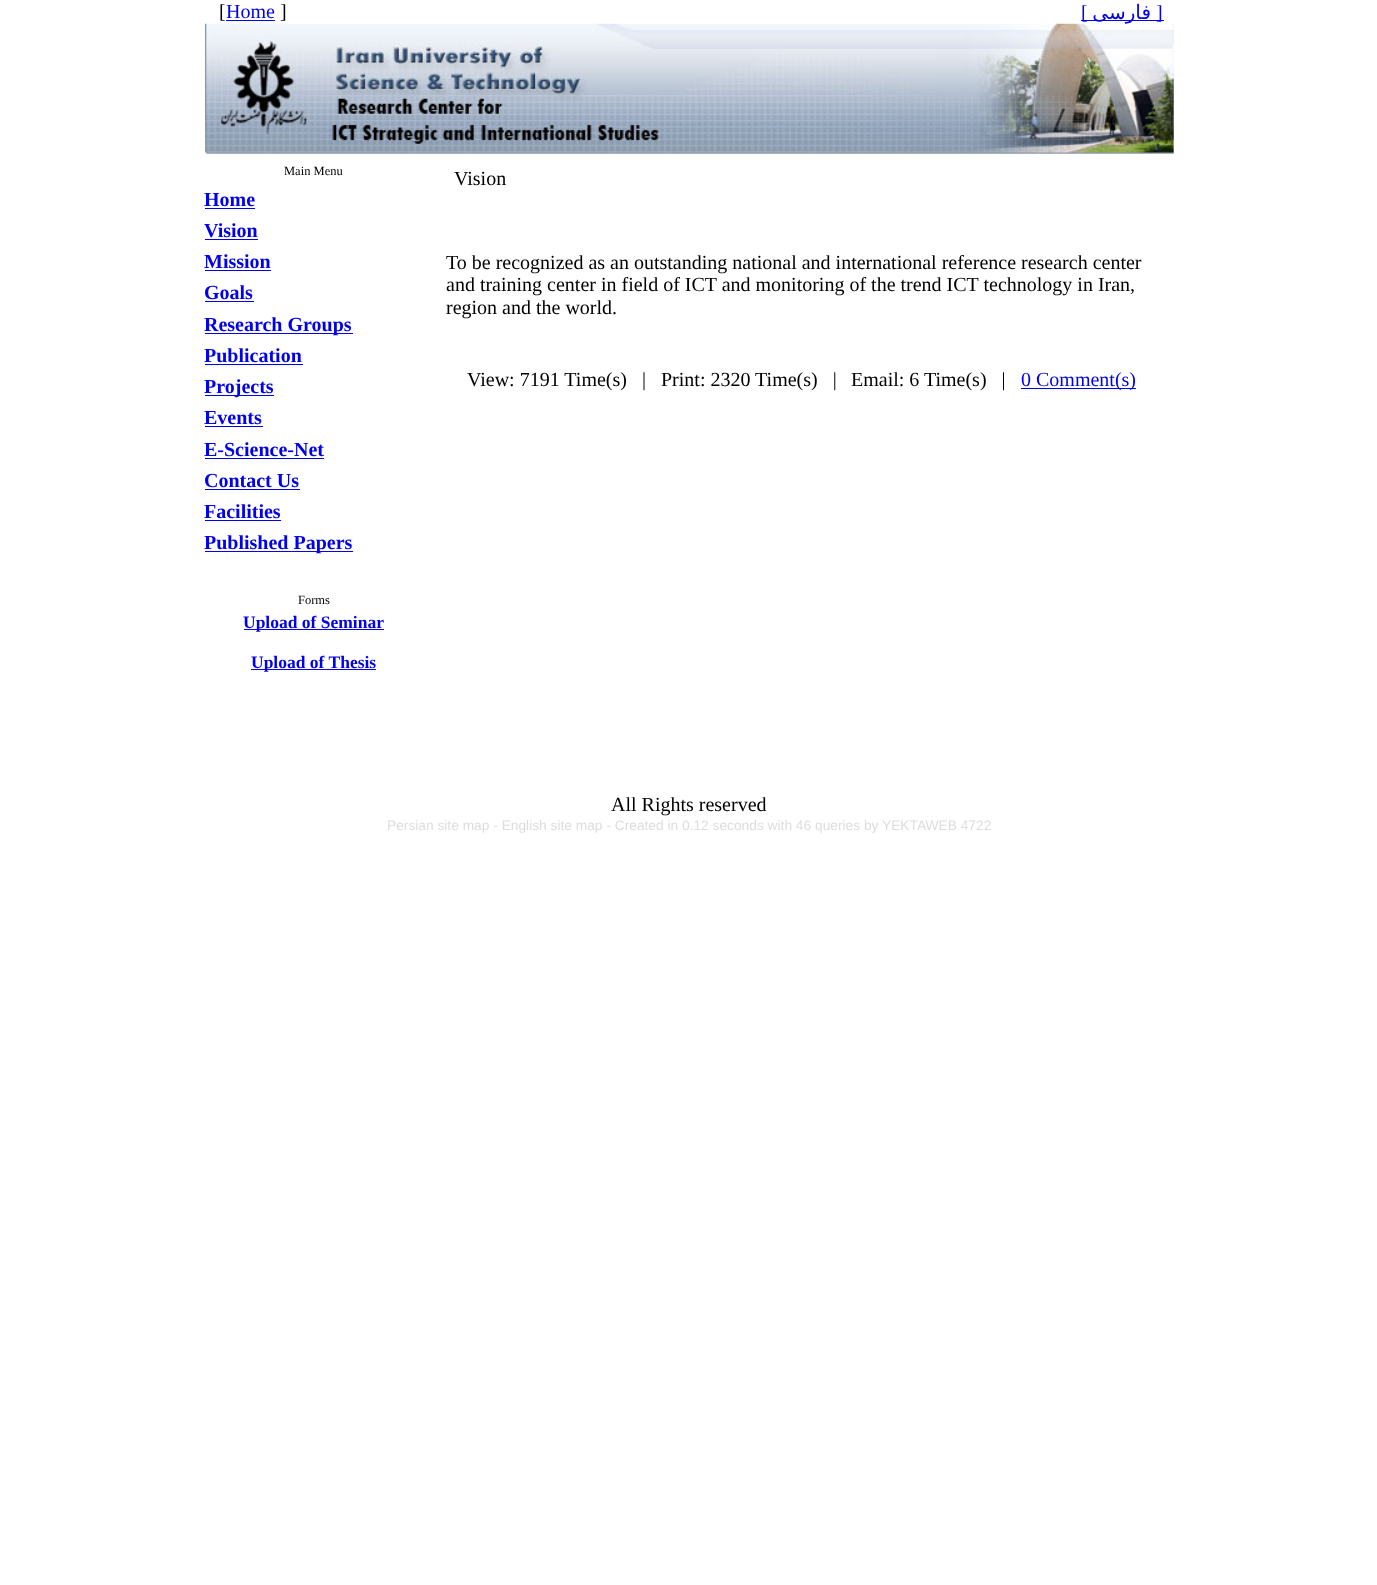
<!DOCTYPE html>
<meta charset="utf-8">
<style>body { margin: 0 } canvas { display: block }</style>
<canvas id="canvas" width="1377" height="1585"></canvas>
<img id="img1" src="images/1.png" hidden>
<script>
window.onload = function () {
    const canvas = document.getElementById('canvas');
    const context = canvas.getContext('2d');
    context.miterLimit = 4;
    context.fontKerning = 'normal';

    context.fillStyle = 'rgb(255, 255, 255)';
    context.fillRect(0, 0, 1377, 1585);
    context.fillStyle = 'rgb(0, 0, 238)';
    context.fillRect(226, 20, 49, 1);
    context.fillRect(1081, 20, 83, 1);
    context.fillRect(205, 208, 50, 1);
    context.fillRect(205, 239, 53, 1);
    context.fillRect(205, 270, 66, 1);
    context.fillRect(205, 301, 49, 1);
    context.fillRect(205, 333, 148, 1);
    context.fillRect(205, 364, 98, 1);
    context.fillRect(205, 395, 69, 1);
    context.fillRect(205, 426, 58, 1);
    context.fillRect(205, 458, 119, 1);
    context.fillRect(205, 489, 95, 1);
    context.fillRect(205, 520, 76, 1);
    context.fillRect(205, 551, 148, 1);
    context.fillRect(244, 629, 140, 1);
    context.fillRect(251, 669, 125, 1);
    context.fillRect(1021, 388, 115, 1);
    context.font = '20px Liberation Serif';
    context.fillStyle = 'rgb(0, 0, 0)';
    context.fillText('[', 219, 18);
    context.fillStyle = 'rgb(0, 0, 238)';
    context.fillText('Home', 226, 18);
    context.fillStyle = 'rgb(0, 0, 0)';
    context.fillText(']', 280, 18);
    context.fillStyle = 'rgb(0, 0, 238)';
    context.fillText('[', 1081, 19);
    context.direction = 'rtl';
    context.font = '20px DejaVu Sans';
    context.fillText('فارسی', 1151, 19);
    context.direction = 'ltr';
    context.font = '20px Liberation Serif';
    context.fillText(']', 1156, 19);
    context.drawImage(document.getElementById('img1'), 205, 23, 969, 131);
    context.font = '12.5px Liberation Serif';
    context.fillStyle = 'rgb(0, 0, 0)';
    context.fillText('Main Menu', 284, 175);
    context.font = 'bold 20px Liberation Serif';
    context.fillStyle = 'rgb(0, 0, 238)';
    context.fillText('Home', 204, 206);
    context.fillText('Vision', 204, 237);
    context.fillText('Mission', 204, 268);
    context.fillText('Goals', 204, 299);
    context.fillText('Research Groups', 204, 331);
    context.fillText('Publication', 204, 362);
    context.fillText('Projects', 204, 393);
    context.fillText('Events', 204, 424);
    context.fillText('E-Science-Net', 204, 456);
    context.fillText('Contact Us', 204, 487);
    context.fillText('Facilities', 204, 518);
    context.fillText('Published Papers', 204, 549);
    context.font = '12.5px Liberation Serif';
    context.fillStyle = 'rgb(0, 0, 0)';
    context.fillText('Forms', 298, 604);
    context.font = 'bold 17.5px Liberation Serif';
    context.fillStyle = 'rgb(0, 0, 238)';
    context.fillText('Upload of Seminar', 243, 628);
    context.fillText('Upload of Thesis', 251, 668);
    context.font = '20px Liberation Serif';
    context.fillStyle = 'rgb(0, 0, 0)';
    context.fillText('Vision', 454, 185);
    context.fillText('To be recognized as an outstanding national and international reference research center', 446, 269);
    context.fillText('and training center in field of ICT and monitoring of the trend ICT technology in Iran,', 446, 291);
    context.fillText('region and the world.', 446, 314);
    context.fillText('View: 7191 Time(s)   |', 467, 386);
    context.fillText('Print: 2320 Time(s)   |', 661, 386);
    context.fillText('Email: 6 Time(s)   |', 851, 386);
    context.fillStyle = 'rgb(0, 0, 238)';
    context.fillText('0 Comment(s)', 1021, 386);
    context.fillStyle = 'rgb(0, 0, 0)';
    context.fillText('All Rights reserved', 611, 811);
    context.font = '13.75px Liberation Sans';
    context.fillStyle = 'rgb(221, 221, 221)';
    context.fillText('Persian site map - English site map - Created in 0.12 seconds with 46 queries by YEKTAWEB 4722', 387, 830);
};
</script>
